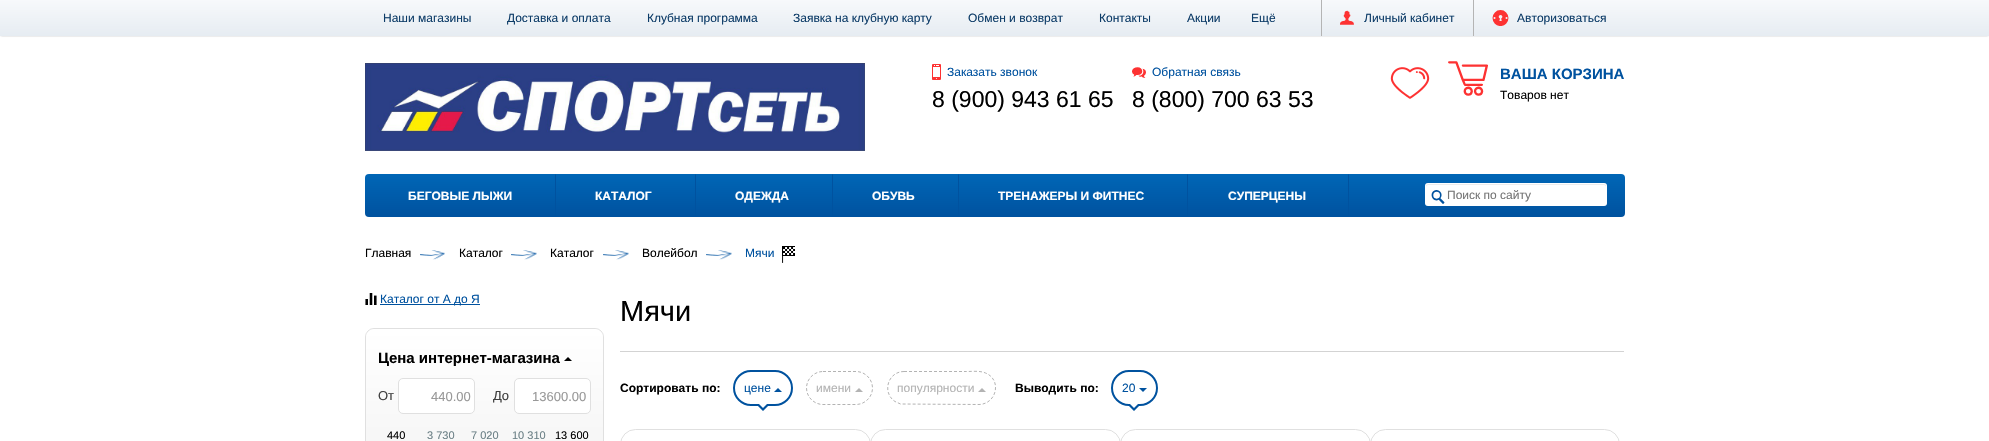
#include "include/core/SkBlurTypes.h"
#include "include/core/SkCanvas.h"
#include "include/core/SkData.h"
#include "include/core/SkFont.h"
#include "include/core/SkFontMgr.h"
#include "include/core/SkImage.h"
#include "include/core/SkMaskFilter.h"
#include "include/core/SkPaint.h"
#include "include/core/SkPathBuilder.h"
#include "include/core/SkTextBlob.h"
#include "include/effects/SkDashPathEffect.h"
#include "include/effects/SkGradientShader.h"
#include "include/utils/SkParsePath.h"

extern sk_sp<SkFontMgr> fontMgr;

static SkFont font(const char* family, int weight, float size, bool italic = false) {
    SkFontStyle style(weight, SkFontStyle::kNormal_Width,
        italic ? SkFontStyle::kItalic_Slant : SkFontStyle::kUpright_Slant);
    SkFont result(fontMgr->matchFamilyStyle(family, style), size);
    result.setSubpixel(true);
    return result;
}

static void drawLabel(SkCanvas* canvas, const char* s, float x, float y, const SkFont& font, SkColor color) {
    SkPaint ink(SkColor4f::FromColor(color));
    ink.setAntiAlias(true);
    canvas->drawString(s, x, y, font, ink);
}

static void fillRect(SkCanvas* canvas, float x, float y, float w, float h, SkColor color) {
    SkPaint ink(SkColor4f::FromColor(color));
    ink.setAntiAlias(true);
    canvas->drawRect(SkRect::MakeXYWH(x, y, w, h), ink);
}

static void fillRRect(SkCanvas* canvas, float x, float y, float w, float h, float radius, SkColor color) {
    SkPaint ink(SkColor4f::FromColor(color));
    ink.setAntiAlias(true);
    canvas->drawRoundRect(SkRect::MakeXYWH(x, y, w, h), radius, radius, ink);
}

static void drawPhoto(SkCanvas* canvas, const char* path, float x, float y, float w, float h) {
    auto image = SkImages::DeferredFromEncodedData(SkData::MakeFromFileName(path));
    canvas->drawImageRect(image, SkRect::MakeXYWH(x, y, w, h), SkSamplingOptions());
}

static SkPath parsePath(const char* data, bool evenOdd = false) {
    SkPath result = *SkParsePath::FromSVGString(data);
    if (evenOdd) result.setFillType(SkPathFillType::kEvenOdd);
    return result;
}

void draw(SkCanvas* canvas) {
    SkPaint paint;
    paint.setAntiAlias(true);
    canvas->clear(0xFFFFFFFF);
    paint.setColor(0xFF000000);
    paint.setMaskFilter(SkMaskFilter::MakeBlur(kNormal_SkBlurStyle, 1));
    canvas->drawRect(SkRect::MakeXYWH(1, 1, 1987, 34), paint);
    paint.setMaskFilter(nullptr);
    {
        const SkColor colors[] = {0xFFF7F9FB, 0xFFE6ECF2};
        const float stops[] = {0, 1};
        const SkPoint ends[] = {{995, 0}, {995, 36}};
        paint.setShader(SkGradientShader::MakeLinear(ends, colors, stops, 2, SkTileMode::kClamp));
        paint.setAlpha(255);
    }
    canvas->drawRect(SkRect::MakeXYWH(0, 0, 1989, 36), paint);
    SkFont font1 = font("Liberation Sans", 400, 12);
    drawLabel(canvas, "Наши магазины", 383, 22, font1, 0xFF0D3C68);
    drawLabel(canvas, "Доставка и оплата", 507, 22, font1, 0xFF0D3C68);
    drawLabel(canvas, "Клубная программа", 647, 22, font1, 0xFF0D3C68);
    drawLabel(canvas, "Заявка на клубную карту", 793, 22, font1, 0xFF0D3C68);
    drawLabel(canvas, "Обмен и возврат", 968, 22, font1, 0xFF0D3C68);
    drawLabel(canvas, "Контакты", 1099, 22, font1, 0xFF0D3C68);
    drawLabel(canvas, "Акции", 1187, 22, font1, 0xFF0D3C68);
    drawLabel(canvas, "Ещё", 1251, 22, font1, 0xFF0D3C68);
    fillRect(canvas, 1321, 0, 1, 36, 0xFFB4B4B4);
    drawPhoto(canvas, "assets/img1.png", 1340, 10, 14, 15);
    drawLabel(canvas, "Личный кабинет", 1364, 22, font1, 0xFF0D3C68);
    fillRect(canvas, 1473, 0, 1, 36, 0xFFB4B4B4);
    drawPhoto(canvas, "assets/img2.png", 1492, 10, 17, 16);
    drawLabel(canvas, "Авторизоваться", 1517, 22, font1, 0xFF0D3C68);
    drawPhoto(canvas, "assets/img3.png", 365, 63, 500, 88);
    drawPhoto(canvas, "assets/img4.png", 932, 64, 9, 16);
    drawLabel(canvas, "Заказать звонок", 947, 76, font1, 0xFF00529F);
    SkFont font2 = font("Liberation Sans", 400, 23);
    drawLabel(canvas, "8 (900) 943 61 65", 932, 107, font2, 0xFF000000);
    drawPhoto(canvas, "assets/img5.png", 1132, 67, 14, 11);
    drawLabel(canvas, "Обратная связь", 1152, 76, font1, 0xFF00529F);
    drawLabel(canvas, "8 (800) 700 63 53", 1132, 107, font2, 0xFF000000);
    drawPhoto(canvas, "assets/img6.png", 1390, 67, 40, 32);
    drawPhoto(canvas, "assets/img7.png", 1448, 61, 40, 35);
    SkFont font3 = font("Liberation Sans", 700, 15);
    drawLabel(canvas, "ВАША КОРЗИНА", 1500, 79, font3, 0xFF00529F);
    drawLabel(canvas, "Товаров нет", 1500, 99, font1, 0xFF000000);
    {
        const SkColor colors[] = {0xFF0066B6, 0xFF00529F};
        const float stops[] = {0, 1};
        const SkPoint ends[] = {{995, 174}, {995, 217}};
        paint.setShader(SkGradientShader::MakeLinear(ends, colors, stops, 2, SkTileMode::kClamp));
        paint.setAlpha(255);
    }
    canvas->drawRoundRect(SkRect::MakeXYWH(365, 174, 1260, 43), 4, 4, paint);
    paint.setShader(nullptr);
    paint.setColor(0xFF00529F);
    canvas->drawPath(parsePath("M556 174V217H555V175Z"), paint);
    SkFont font4 = font("Liberation Sans", 700, 12);
    drawLabel(canvas, "БЕГОВЫЕ ЛЫЖИ", 408, 200, font4, 0xFFFFFFFF);
    canvas->drawPath(parsePath("M696 174V217H695V175Z"), paint);
    drawLabel(canvas, "КАТАЛОГ", 595, 200, font4, 0xFFFFFFFF);
    canvas->drawPath(parsePath("M833 174V217H832V175Z"), paint);
    drawLabel(canvas, "ОДЕЖДА", 735, 200, font4, 0xFFFFFFFF);
    canvas->drawPath(parsePath("M959 174V217H958V175Z"), paint);
    drawLabel(canvas, "ОБУВЬ", 872, 200, font4, 0xFFFFFFFF);
    canvas->drawPath(parsePath("M1188 174V217H1187V175Z"), paint);
    drawLabel(canvas, "ТРЕНАЖЕРЫ И ФИТНЕС", 998, 200, font4, 0xFFFFFFFF);
    canvas->drawPath(parsePath("M1349 174V217H1348V175Z"), paint);
    drawLabel(canvas, "СУПЕРЦЕНЫ", 1228, 200, font4, 0xFFFFFFFF);
    fillRRect(canvas, 1425, 183, 182, 23, 3, 0xFFFFFFFF);
    paint.setColor(0xFFECECEC);
    canvas->drawPath(parsePath("M1428 185H1604C1605 185 1606 186 1606 187V186C1606 185 1605 184 1604 184H1428C1427 184 1426 185 1426 186V187C1426 186 1427 185 1428 185Z"), paint);
    paint.setStroke(true);
    paint.setStrokeWidth(1);
    paint.setColor(0x33FFFFFF);
    canvas->drawRoundRect(SkRect::MakeXYWH(1425.5f, 183.5f, 181, 22), 2.5f, 2.5f, paint);
    drawPhoto(canvas, "assets/img8.png", 1431, 190, 14, 14);
    drawLabel(canvas, "Поиск по сайту", 1447, 199, font1, 0xFF757575);
    drawLabel(canvas, "Главная", 365, 257, font1, 0xFF000000);
    drawPhoto(canvas, "assets/img9.png", 420, 250, 25, 10);
    drawLabel(canvas, "Каталог", 459, 257, font1, 0xFF000000);
    drawPhoto(canvas, "assets/img10.png", 511, 250, 26, 10);
    drawLabel(canvas, "Каталог", 550, 257, font1, 0xFF000000);
    drawPhoto(canvas, "assets/img10.png", 603, 250, 26, 10);
    drawLabel(canvas, "Волейбол", 642, 257, font1, 0xFF000000);
    drawPhoto(canvas, "assets/img10.png", 706, 250, 26, 10);
    drawLabel(canvas, "Мячи", 745, 257, font1, 0xFF00529F);
    drawPhoto(canvas, "assets/img11.png", 782, 246, 13, 17);
    drawPhoto(canvas, "assets/img12.png", 365, 293, 12, 12);
    fillRect(canvas, 380, 304, 100, 1, 0xFF00529F);
    drawLabel(canvas, "Каталог от А до Я", 380, 303, font1, 0xFF00529F);
    paint.setColor(0xFFE0E0E0);
    canvas->drawRoundRect(SkRect::MakeXYWH(365.5f, 328.5f, 238, 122), 8.5f, 8.5f, paint);
    paint.setStroke(false);
    {
        const SkColor colors[] = {0xFFFFFFFF, 0xFFF2F2F2};
        const float stops[] = {0, 1};
        const SkPoint ends[] = {{485, 329}, {485, 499}};
        paint.setShader(SkGradientShader::MakeLinear(ends, colors, stops, 2, SkTileMode::kClamp));
        paint.setAlpha(255);
    }
    canvas->drawPath(parsePath("M375 329H594C599 329 603 333 603 338V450H366V338C366 333 370 329 375 329Z"), paint);
    drawLabel(canvas, "Цена интернет-магазина", 378, 363, font3, 0xFF000000);
    paint.setShader(nullptr);
    paint.setColor(0xFF000000);
    canvas->drawPath(parsePath("M572 361H564L568 357Z"), paint);
    SkFont font5 = font("Liberation Sans", 400, 13);
    drawLabel(canvas, "От", 378, 400, font5, 0xFF3F3F3F);
    paint.setColor(0xFFFFFFFF);
    canvas->drawRoundRect(SkRect::MakeXYWH(398.5f, 378.5f, 76, 35), 4.5f, 4.5f, paint);
    paint.setStroke(true);
    paint.setColor(0xFFE0E0E0);
    canvas->drawRoundRect(SkRect::MakeXYWH(398.5f, 378.5f, 76, 35), 4.5f, 4.5f, paint);
    drawLabel(canvas, "440.00", 431, 401, font5, 0xFF999999);
    drawLabel(canvas, "До", 493, 400, font5, 0xFF3F3F3F);
    paint.setStroke(false);
    paint.setColor(0xFFFFFFFF);
    canvas->drawRoundRect(SkRect::MakeXYWH(514.5f, 378.5f, 76, 35), 4.5f, 4.5f, paint);
    paint.setStroke(true);
    paint.setColor(0xFFE0E0E0);
    canvas->drawRoundRect(SkRect::MakeXYWH(514.5f, 378.5f, 76, 35), 4.5f, 4.5f, paint);
    drawLabel(canvas, "13600.00", 532, 401, font5, 0xFF999999);
    SkFont font6 = font("Liberation Sans", 400, 11);
    drawLabel(canvas, "440", 387, 439, font6, 0xFF000000);
    drawLabel(canvas, "3 730", 427, 439, font6, 0xFF6B8086);
    drawLabel(canvas, "7 020", 471, 439, font6, 0xFF6B8086);
    drawLabel(canvas, "10 310", 512, 439, font6, 0xFF6B8086);
    drawLabel(canvas, "13 600", 555, 439, font6, 0xFF000000);
    fillRect(canvas, 620, 351, 1004, 1, 0xFFD3D3D3);
    SkFont font7 = font("Liberation Sans", 400, 29);
    drawLabel(canvas, "Мячи", 620, 321, font7, 0xFF000000);
    drawLabel(canvas, "Сортировать по:", 620, 392, font4, 0xFF000000);
    paint.setStrokeWidth(2);
    paint.setColor(0xFF00529F);
    canvas->drawRoundRect(SkRect::MakeXYWH(734, 371, 58, 34), 17, 17, paint);
    drawLabel(canvas, "цене", 744, 392, font1, 0xFF00529F);
    paint.setStroke(false);
    canvas->drawPath(parsePath("M782 392H774L778 388ZM756 404H770L763 411Z"), paint);
    paint.setColor(0xFFFFFFFF);
    canvas->drawPath(parsePath("M756 401H770L763 408Z"), paint);
    paint.setStroke(true);
    paint.setStrokeWidth(1);
    paint.setColor(0xFFB3B3B3);
    paint.setPathEffect(SkDashPathEffect::Make({{3, 2}}, 0));
    canvas->drawPath(parsePath("M823 371.5H856C865 371.5 872.5 379 872.5 388C872.5 397 865 404.5 856 404.5H823C814 404.5 806.5 397 806.5 388C806.5 379 814 371.5 823 371.5Z"), paint);
    paint.setPathEffect(nullptr);
    drawLabel(canvas, "имени", 816, 392, font1, 0xFFB3B3B3);
    paint.setStroke(false);
    canvas->drawPath(parsePath("M863 392H855L859 388Z"), paint);
    paint.setStroke(true);
    paint.setPathEffect(SkDashPathEffect::Make({{3, 2}}, 0));
    canvas->drawPath(parsePath("M904 371.5H966.5C972 371.5 980 370.5 985.5 373C1002 379.5 997 404 979 404.5L900.5 404L895 401.5C881.5 392.5 888 371.5 904 371.5Z"), paint);
    paint.setPathEffect(nullptr);
    drawLabel(canvas, "популярности", 897, 392, font1, 0xFFB3B3B3);
    paint.setStroke(false);
    canvas->drawPath(parsePath("M986 392H978L982 388Z"), paint);
    drawLabel(canvas, "Выводить по:", 1015, 392, font4, 0xFF000000);
    paint.setStroke(true);
    paint.setStrokeWidth(2);
    paint.setColor(0xFF00529F);
    canvas->drawRoundRect(SkRect::MakeXYWH(1112, 371, 45, 34), 17, 17, paint);
    drawLabel(canvas, "20", 1122, 392, font1, 0xFF00529F);
    paint.setStroke(false);
    canvas->drawPath(parsePath("M1139 388H1147L1143 392ZM1127 404H1141L1134 411Z"), paint);
    paint.setColor(0xFFFFFFFF);
    canvas->drawPath(parsePath("M1127 401H1141L1134 408Z"), paint);
    paint.setStroke(true);
    paint.setStrokeWidth(1);
    paint.setColor(0xFFE0E0E0);
    canvas->drawRoundRect(SkRect::MakeXYWH(620.5f, 429.5f, 250, 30), 17.5f, 17.5f, paint);
    canvas->drawRoundRect(SkRect::MakeXYWH(870.5f, 429.5f, 250, 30), 17.5f, 17.5f, paint);
    canvas->drawRoundRect(SkRect::MakeXYWH(1120.5f, 429.5f, 250, 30), 17.5f, 17.5f, paint);
    canvas->drawRoundRect(SkRect::MakeXYWH(1370.5f, 429.5f, 249, 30), 17.5f, 17.5f, paint);
}
